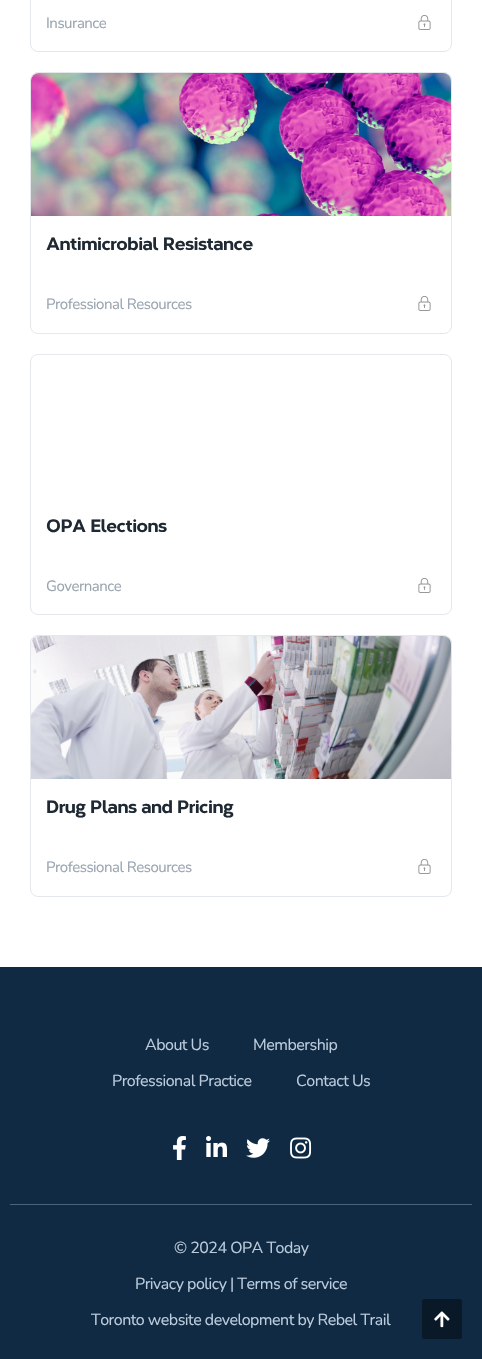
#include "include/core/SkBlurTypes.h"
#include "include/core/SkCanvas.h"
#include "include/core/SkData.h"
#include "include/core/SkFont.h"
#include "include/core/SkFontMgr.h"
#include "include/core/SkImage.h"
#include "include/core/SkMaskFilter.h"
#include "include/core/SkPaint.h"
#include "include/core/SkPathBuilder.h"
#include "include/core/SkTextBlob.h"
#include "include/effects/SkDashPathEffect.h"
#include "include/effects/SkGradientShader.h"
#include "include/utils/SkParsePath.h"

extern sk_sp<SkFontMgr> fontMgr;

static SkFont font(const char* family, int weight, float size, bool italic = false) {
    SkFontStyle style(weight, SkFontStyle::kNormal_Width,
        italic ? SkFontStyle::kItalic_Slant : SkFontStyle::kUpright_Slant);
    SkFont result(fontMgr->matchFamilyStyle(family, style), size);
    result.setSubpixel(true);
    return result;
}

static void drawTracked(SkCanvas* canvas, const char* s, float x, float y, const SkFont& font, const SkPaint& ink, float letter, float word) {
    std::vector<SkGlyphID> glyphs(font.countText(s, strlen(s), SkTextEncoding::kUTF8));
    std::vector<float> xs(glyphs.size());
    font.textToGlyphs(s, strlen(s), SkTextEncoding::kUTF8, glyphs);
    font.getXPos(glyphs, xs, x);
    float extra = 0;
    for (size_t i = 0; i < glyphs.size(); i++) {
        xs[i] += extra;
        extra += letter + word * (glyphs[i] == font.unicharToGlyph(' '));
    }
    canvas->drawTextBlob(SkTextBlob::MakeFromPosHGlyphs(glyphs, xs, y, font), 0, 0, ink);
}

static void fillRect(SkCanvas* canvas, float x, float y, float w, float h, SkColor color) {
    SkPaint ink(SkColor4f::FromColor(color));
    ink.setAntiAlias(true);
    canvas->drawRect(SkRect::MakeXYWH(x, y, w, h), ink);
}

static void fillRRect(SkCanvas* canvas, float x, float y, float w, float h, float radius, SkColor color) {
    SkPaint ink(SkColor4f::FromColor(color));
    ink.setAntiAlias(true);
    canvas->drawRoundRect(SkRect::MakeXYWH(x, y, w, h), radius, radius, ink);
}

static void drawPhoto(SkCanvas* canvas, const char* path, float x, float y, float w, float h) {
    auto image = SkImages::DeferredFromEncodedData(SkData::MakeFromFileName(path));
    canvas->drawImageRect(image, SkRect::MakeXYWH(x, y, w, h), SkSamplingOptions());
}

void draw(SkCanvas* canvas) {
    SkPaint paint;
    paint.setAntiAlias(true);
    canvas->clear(0xFFFFFFFF);
    paint.setStroke(true);
    paint.setStrokeWidth(1);
    paint.setColor(0xFFE4E7EB);
    canvas->drawRoundRect(SkRect::MakeXYWH(30.5f, -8.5f, 421, 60), 7.5f, 7.5f, paint);
    SkFont font1 = font("Nunito", 400, 15);
    paint.setStroke(false);
    paint.setColor(0xFF9AA5B1);
    drawTracked(canvas, "Insurance", 46, 28, font1, paint, -0.5f, 0);
    drawPhoto(canvas, "assets/img1.png", 418, 15, 13, 15);
    paint.setStroke(true);
    paint.setColor(0xFFE4E7EB);
    canvas->drawRoundRect(SkRect::MakeXYWH(30.5f, 72.5f, 421, 261), 7.5f, 7.5f, paint);
    drawPhoto(canvas, "assets/img2.png", 31, 73, 420, 143);
    SkFont font2 = font("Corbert", 800, 18);
    paint.setStroke(false);
    paint.setColor(0xFF1F2933);
    drawTracked(canvas, "Antimicrobial Resistance", 46, 250, font2, paint, -0.5f, 0);
    paint.setColor(0xFF9AA5B1);
    drawTracked(canvas, "Professional Resources", 46, 309, font1, paint, -0.5f, 0);
    drawPhoto(canvas, "assets/img1.png", 418, 296, 13, 15);
    paint.setStroke(true);
    paint.setColor(0xFFE4E7EB);
    canvas->drawRoundRect(SkRect::MakeXYWH(30.5f, 354.5f, 421, 260), 7.5f, 7.5f, paint);
    paint.setStroke(false);
    paint.setColor(0xFF1F2933);
    drawTracked(canvas, "OPA Elections", 46, 532, font2, paint, -0.5f, 0);
    paint.setColor(0xFF9AA5B1);
    drawTracked(canvas, "Governance", 46, 591, font1, paint, -0.5f, 0);
    drawPhoto(canvas, "assets/img1.png", 418, 578, 13, 15);
    paint.setStroke(true);
    paint.setColor(0xFFE4E7EB);
    canvas->drawRoundRect(SkRect::MakeXYWH(30.5f, 635.5f, 421, 261), 7.5f, 7.5f, paint);
    drawPhoto(canvas, "assets/img3.png", 31, 636, 420, 143);
    paint.setStroke(false);
    paint.setColor(0xFF1F2933);
    drawTracked(canvas, "Drug Plans and Pricing", 46, 813, font2, paint, -0.5f, 0);
    paint.setColor(0xFF9AA5B1);
    drawTracked(canvas, "Professional Resources", 46, 872, font1, paint, -0.5f, 0);
    drawPhoto(canvas, "assets/img1.png", 418, 859, 13, 15);
    fillRect(canvas, 0, 967, 482, 392, 0xFF102A43);
    SkFont font3 = font("Nunito", 400, 16);
    paint.setColor(0xFFBCCCDC);
    drawTracked(canvas, "About Us", 145, 1050, font3, paint, -0.5f, 0);
    drawTracked(canvas, "Membership", 253, 1050, font3, paint, -0.5f, 0);
    drawTracked(canvas, "Professional Practice", 112, 1086, font3, paint, -0.5f, 0);
    drawTracked(canvas, "Contact Us", 296, 1086, font3, paint, -0.5f, 0);
    fillRect(canvas, 10, 1204, 462, 1, 0xFF4C6379);
    drawPhoto(canvas, "assets/img4.png", 173, 1136, 13, 24);
    drawPhoto(canvas, "assets/img5.png", 206, 1136, 21, 21);
    drawPhoto(canvas, "assets/img6.png", 246, 1138, 24, 20);
    drawPhoto(canvas, "assets/img7.png", 290, 1137, 22, 22);
    drawTracked(canvas, "© 2024 OPA Today", 174, 1253, font3, paint, -0.5f, 0);
    drawTracked(canvas, "Privacy policy | Terms of service", 135, 1289, font3, paint, -0.5f, 0);
    drawTracked(canvas, "Toronto website development by Rebel Trail", 91, 1325, font3, paint, -0.5f, 0);
    fillRRect(canvas, 422, 1299, 40, 40, 2, 0xFF0A1928);
    drawPhoto(canvas, "assets/img8.png", 434, 1311, 16, 17);
}
